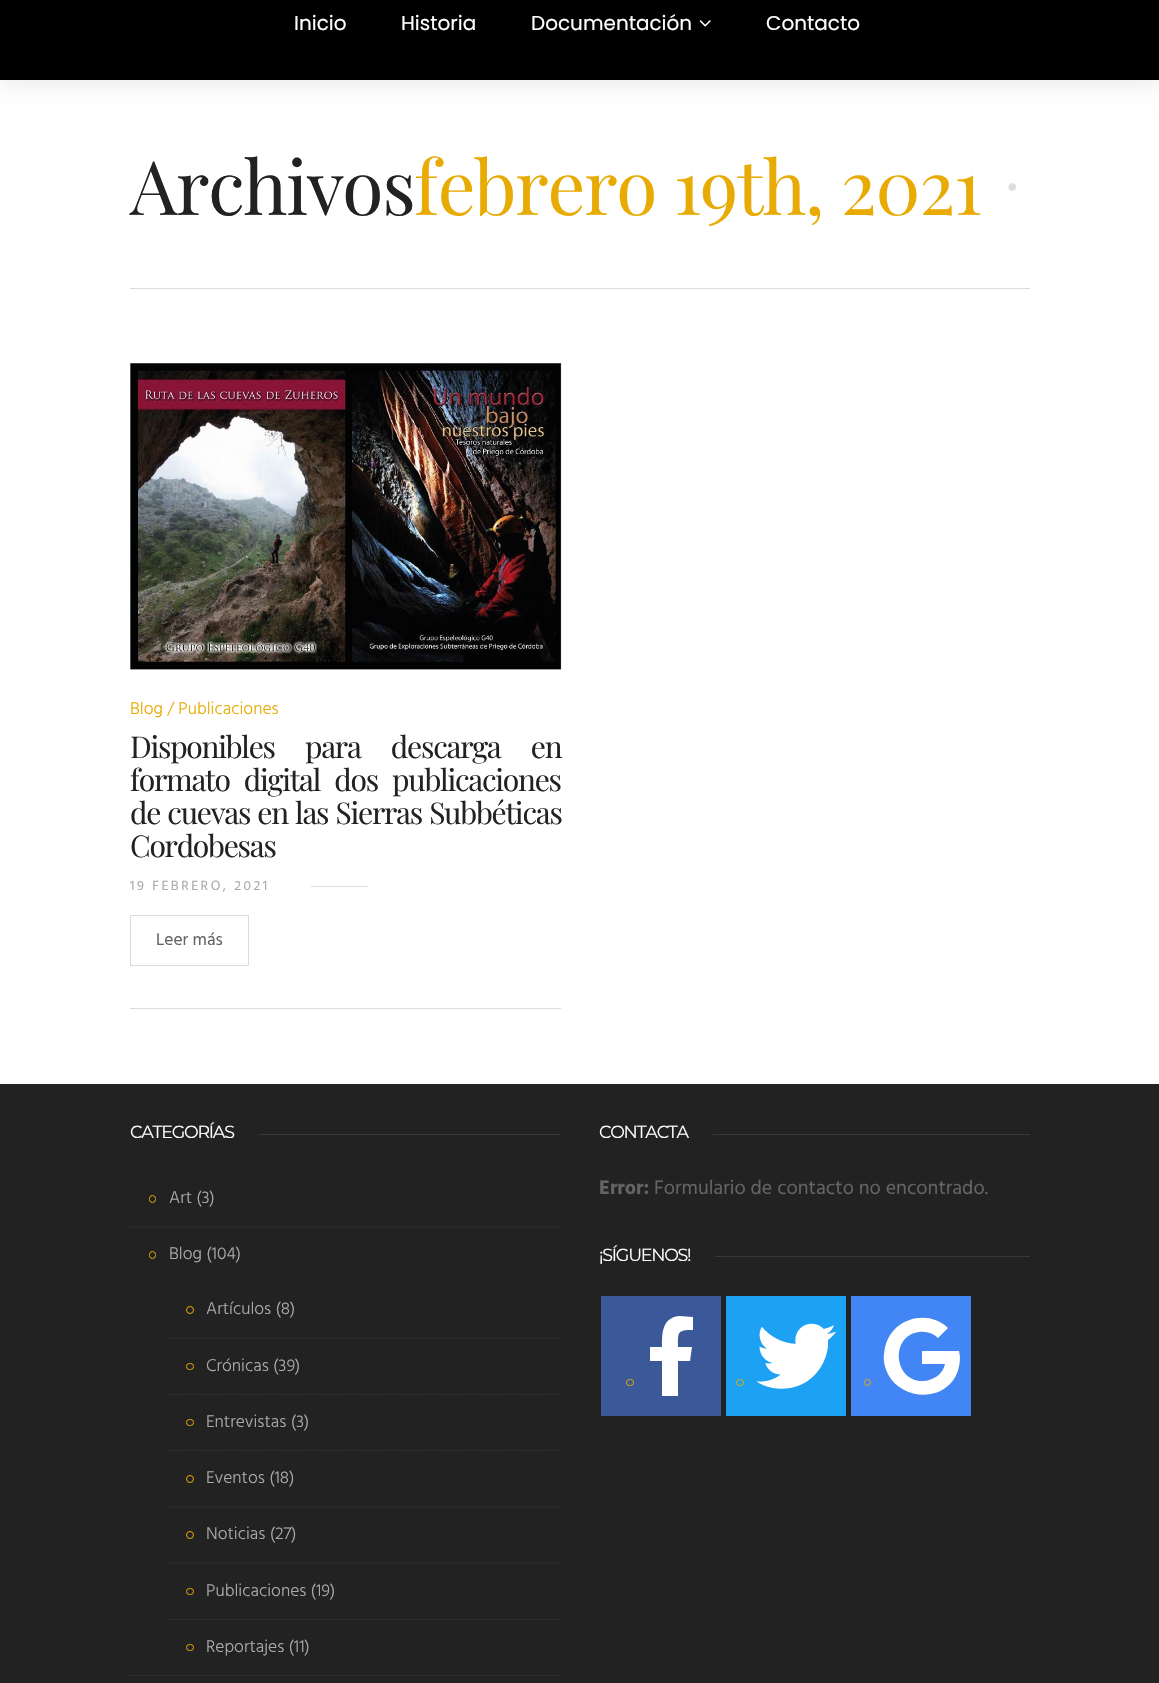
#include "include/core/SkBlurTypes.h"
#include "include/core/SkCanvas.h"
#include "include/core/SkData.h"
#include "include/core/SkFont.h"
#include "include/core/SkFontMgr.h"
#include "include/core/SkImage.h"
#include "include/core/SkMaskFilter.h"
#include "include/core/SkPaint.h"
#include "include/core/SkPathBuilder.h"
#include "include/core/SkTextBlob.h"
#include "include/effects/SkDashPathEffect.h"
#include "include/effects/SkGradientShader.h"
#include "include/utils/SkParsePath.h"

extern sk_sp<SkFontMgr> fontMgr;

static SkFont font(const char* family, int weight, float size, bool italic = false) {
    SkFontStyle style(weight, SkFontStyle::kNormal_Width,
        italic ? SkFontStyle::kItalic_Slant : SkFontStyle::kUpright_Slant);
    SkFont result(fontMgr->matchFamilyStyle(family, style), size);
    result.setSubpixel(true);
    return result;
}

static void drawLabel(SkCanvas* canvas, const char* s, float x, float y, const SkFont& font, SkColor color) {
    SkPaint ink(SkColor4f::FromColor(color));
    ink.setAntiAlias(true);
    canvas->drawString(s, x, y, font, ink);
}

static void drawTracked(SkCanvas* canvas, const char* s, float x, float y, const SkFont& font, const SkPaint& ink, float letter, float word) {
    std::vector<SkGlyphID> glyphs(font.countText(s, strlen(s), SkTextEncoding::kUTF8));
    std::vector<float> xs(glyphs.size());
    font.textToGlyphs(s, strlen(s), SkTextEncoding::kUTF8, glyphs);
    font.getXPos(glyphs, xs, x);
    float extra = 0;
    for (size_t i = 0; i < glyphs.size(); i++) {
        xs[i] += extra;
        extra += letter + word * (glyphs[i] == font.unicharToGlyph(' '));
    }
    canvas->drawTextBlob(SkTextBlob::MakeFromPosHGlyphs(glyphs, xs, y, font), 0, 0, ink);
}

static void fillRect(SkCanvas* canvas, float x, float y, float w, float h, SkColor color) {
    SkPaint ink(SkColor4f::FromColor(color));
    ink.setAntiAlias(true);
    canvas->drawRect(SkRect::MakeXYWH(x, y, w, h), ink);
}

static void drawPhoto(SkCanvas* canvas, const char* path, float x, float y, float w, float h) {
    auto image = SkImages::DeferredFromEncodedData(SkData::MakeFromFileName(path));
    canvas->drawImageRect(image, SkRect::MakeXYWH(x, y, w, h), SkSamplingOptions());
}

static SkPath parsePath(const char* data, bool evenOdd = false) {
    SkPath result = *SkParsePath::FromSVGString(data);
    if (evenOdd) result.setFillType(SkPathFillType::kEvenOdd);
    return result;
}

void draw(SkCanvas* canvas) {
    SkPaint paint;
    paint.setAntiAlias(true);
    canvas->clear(0xFFFFFFFF);
    paint.setColor(0x1A000000);
    paint.setMaskFilter(SkMaskFilter::MakeBlur(kNormal_SkBlurStyle, 12.5f));
    canvas->drawRect(SkRect::MakeXYWH(0, -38, 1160, 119), paint);
    paint.setMaskFilter(nullptr);
    fillRect(canvas, 0, 0, 1159, 80, 0xFF000000);
    SkFont font1 = font("Poppins", 400, 20);
    drawLabel(canvas, "Inicio", 294, 30, font1, 0xFFFFFFFF);
    drawLabel(canvas, "Historia", 401, 30, font1, 0xFFFFFFFF);
    drawLabel(canvas, "Documentación", 531, 30, font1, 0xFFFFFFFF);
    drawPhoto(canvas, "assets/img1.png", 699, 20, 12, 7);
    drawLabel(canvas, "Contacto", 766, 30, font1, 0xFFFFFFFF);
    fillRect(canvas, 130, 288, 900, 1, 0xFFDDDDDD);
    SkFont font2 = font("Playfair Display", 400, 75);
    paint.setColor(0xFF222222);
    drawTracked(canvas, "Archivos", 130, 215, font2, paint, -1.25f, 0);
    paint.setColor(0xFFE8AB04);
    drawTracked(canvas, "febrero 19th, 2021", 414, 215, font2, paint, -1.25f, 0);
    SkFont font3 = font("Liberation Serif", 400, 17.5f);
    paint.setColor(0xFFDDDDDD);
    drawTracked(canvas, "●", 1007, 192, font3, paint, -1.25f, 0);
    fillRect(canvas, 130, 1008, 431, 1, 0xFFDDDDDD);
    drawPhoto(canvas, "assets/img2.png", 130, 363, 432, 307);
    SkFont font4 = font("Hind", 300, 17.5f);
    drawLabel(canvas, "Blog / Publicaciones", 130, 714, font4, 0xFFE8AB04);
    SkFont font5 = font("Playfair Display", 400, 30);
    paint.setColor(0xFF222222);
    drawTracked(canvas, "Disponibles para descarga en", 130, 758, font5, paint, -1.25f, 24);
    drawTracked(canvas, "formato digital dos publicaciones", 130, 791, font5, paint, -1.25f, 8);
    drawTracked(canvas, "de cuevas en las Sierras Subbéticas", 130, 824, font5, paint, -1.25f, 1);
    drawTracked(canvas, "Cordobesas", 130, 857, font5, paint, -1.25f, 0);
    SkFont font6 = font("Hind", 400, 13.75f);
    paint.setColor(0xFFAAAAAA);
    drawTracked(canvas, "19 FEBRERO, 2021", 130, 890, font6, paint, 2.5f, 0);
    fillRect(canvas, 311, 886, 57, 1, 0xFFDDDDDD);
    paint.setStroke(true);
    paint.setStrokeWidth(1);
    paint.setColor(0xFFDCDCDC);
    canvas->drawRect(SkRect::MakeXYWH(130.5f, 915.5f, 118, 50), paint);
    SkFont font7 = font("Hind", 400, 17.5f);
    drawLabel(canvas, "Leer más", 156, 945, font7, 0xFF646464);
    fillRect(canvas, 0, 1084, 1159, 599, 0xFF222222);
    SkFont font8 = font("Montserrat", 400, 17.5f);
    paint.setStroke(false);
    paint.setColor(0xFFFFFFFF);
    drawTracked(canvas, "CATEGORÍAS", 130, 1138, font8, paint, -1.25f, 0);
    fillRect(canvas, 259, 1134, 302, 1, 0xFF383838);
    paint.setStroke(true);
    paint.setStrokeWidth(1.2f);
    paint.setColor(0xFF383838);
    paint.setPathEffect(SkDashPathEffect::Make({{1.25f, 1.25f}}, 0));
    canvas->drawPath(parsePath("M130 1227H561"), paint);
    paint.setPathEffect(nullptr);
    paint.setStrokeWidth(1);
    paint.setColor(0xFFE8AB04);
    canvas->drawRoundRect(SkRect::MakeXYWH(149.5f, 1195.5f, 6, 7), 3, 3, paint);
    drawLabel(canvas, "Art (3)", 169, 1203, font4, 0xFFAAAAAA);
    canvas->drawRoundRect(SkRect::MakeXYWH(149.5f, 1251.5f, 6, 7), 3, 3, paint);
    drawLabel(canvas, "Blog (104)", 169, 1259, font4, 0xFFAAAAAA);
    paint.setStrokeWidth(1.2f);
    paint.setColor(0xFF383838);
    paint.setPathEffect(SkDashPathEffect::Make({{1.25f, 1.25f}}, 0));
    canvas->drawPath(parsePath("M130 1675.5H561"), paint);
    paint.setPathEffect(nullptr);
    paint.setPathEffect(SkDashPathEffect::Make({{1.25f, 1.25f}}, 0));
    canvas->drawPath(parsePath("M167.5 1338H561"), paint);
    paint.setPathEffect(nullptr);
    paint.setStrokeWidth(1);
    paint.setColor(0xFFE8AB04);
    canvas->drawCircle(190, 1310, 3.5f, paint);
    drawLabel(canvas, "Artículos (8)", 206, 1314, font4, 0xFFAAAAAA);
    paint.setStrokeWidth(1.2f);
    paint.setColor(0xFF383838);
    paint.setPathEffect(SkDashPathEffect::Make({{1.25f, 1.25f}}, 0));
    canvas->drawPath(parsePath("M167.5 1394.5H561"), paint);
    paint.setPathEffect(nullptr);
    paint.setStrokeWidth(1);
    paint.setColor(0xFFE8AB04);
    canvas->drawRoundRect(SkRect::MakeXYWH(186.5f, 1363.5f, 7, 6), 3, 3, paint);
    drawLabel(canvas, "Crónicas (39)", 206, 1371, font4, 0xFFAAAAAA);
    paint.setStrokeWidth(1.2f);
    paint.setColor(0xFF383838);
    paint.setPathEffect(SkDashPathEffect::Make({{1.25f, 1.25f}}, 0));
    canvas->drawPath(parsePath("M167.5 1450.5H561"), paint);
    paint.setPathEffect(nullptr);
    paint.setStrokeWidth(1);
    paint.setColor(0xFFE8AB04);
    canvas->drawRoundRect(SkRect::MakeXYWH(186.5f, 1419.5f, 7, 6), 3, 3, paint);
    drawLabel(canvas, "Entrevistas (3)", 206, 1427, font4, 0xFFAAAAAA);
    paint.setStrokeWidth(1.2f);
    paint.setColor(0xFF383838);
    paint.setPathEffect(SkDashPathEffect::Make({{1.25f, 1.25f}}, 0));
    canvas->drawPath(parsePath("M167.5 1507H561"), paint);
    paint.setPathEffect(nullptr);
    paint.setStrokeWidth(1);
    paint.setColor(0xFFE8AB04);
    canvas->drawCircle(190, 1479, 3.5f, paint);
    drawLabel(canvas, "Eventos (18)", 206, 1483, font4, 0xFFAAAAAA);
    paint.setStrokeWidth(1.2f);
    paint.setColor(0xFF383838);
    paint.setPathEffect(SkDashPathEffect::Make({{1.25f, 1.25f}}, 0));
    canvas->drawPath(parsePath("M167.5 1563H561"), paint);
    paint.setPathEffect(nullptr);
    paint.setStrokeWidth(1);
    paint.setColor(0xFFE8AB04);
    canvas->drawCircle(190, 1535, 3.5f, paint);
    drawLabel(canvas, "Noticias (27)", 206, 1539, font4, 0xFFAAAAAA);
    paint.setStrokeWidth(1.2f);
    paint.setColor(0xFF383838);
    paint.setPathEffect(SkDashPathEffect::Make({{1.25f, 1.25f}}, 0));
    canvas->drawPath(parsePath("M167.5 1619.5H561"), paint);
    paint.setPathEffect(nullptr);
    paint.setStrokeWidth(1);
    paint.setColor(0xFFE8AB04);
    canvas->drawRoundRect(SkRect::MakeXYWH(186.5f, 1588.5f, 7, 6), 3, 3, paint);
    drawLabel(canvas, "Publicaciones (19)", 206, 1596, font4, 0xFFAAAAAA);
    canvas->drawRoundRect(SkRect::MakeXYWH(186.5f, 1644.5f, 7, 6), 3, 3, paint);
    drawLabel(canvas, "Reportajes (11)", 206, 1652, font4, 0xFFAAAAAA);
    paint.setStroke(false);
    paint.setColor(0xFFFFFFFF);
    drawTracked(canvas, "CONTACTA", 599, 1138, font8, paint, -1.25f, 0);
    fillRect(canvas, 713, 1134, 317, 1, 0xFF383838);
    SkFont font9 = font("Hind", 700, 20);
    drawLabel(canvas, "Error:", 599, 1194, font9, 0xFF646464);
    SkFont font10 = font("Hind", 400, 20);
    drawLabel(canvas, "Formulario de contacto no encontrado.", 654, 1194, font10, 0xFF646464);
    drawTracked(canvas, "¡SÍGUENOS!", 599, 1261, font8, paint, -1.25f, 0);
    fillRect(canvas, 715, 1256, 315, 1, 0xFF383838);
    fillRect(canvas, 601, 1296, 120, 120, 0xFF3B5998);
    paint.setStroke(true);
    paint.setColor(0xFFE8AB04);
    canvas->drawRoundRect(SkRect::MakeXYWH(626.5f, 1379.5f, 7, 6), 3, 3, paint);
    paint.setStroke(false);
    paint.setColor(0xFFFFFFFF);
    canvas->drawPath(parsePath("M690 1361L692 1347H678C678 1332 677 1330 693 1330V1317C688 1317 684 1316 679 1316C662 1318 662 1333 662 1347H650V1361H662V1396H678V1361Z"), paint);
    fillRect(canvas, 726, 1296, 120, 120, 0xFF1DA1F2);
    paint.setStroke(true);
    paint.setColor(0xFFE8AB04);
    canvas->drawRoundRect(SkRect::MakeXYWH(736.5f, 1379.5f, 7, 6), 3, 3, paint);
    drawPhoto(canvas, "assets/img3.png", 756, 1323, 81, 66);
    fillRect(canvas, 851, 1296, 120, 120, 0xFF4285F4);
    canvas->drawCircle(867.5f, 1382.5f, 3, paint);
    paint.setStroke(false);
    paint.setColor(0xFFFFFFFF);
    canvas->drawPath(parsePath("M960 1357C960 1367 957 1377 950 1384C932 1402 901 1396 889 1376C885 1369 883 1361 884 1354C885 1343 889 1334 897 1327C911 1315 934 1314 948 1328L938 1338C933 1333 926 1331 919 1332C889 1336 894 1383 924 1381C934 1380 943 1374 945 1364H922V1351H959Z"), paint);
}
